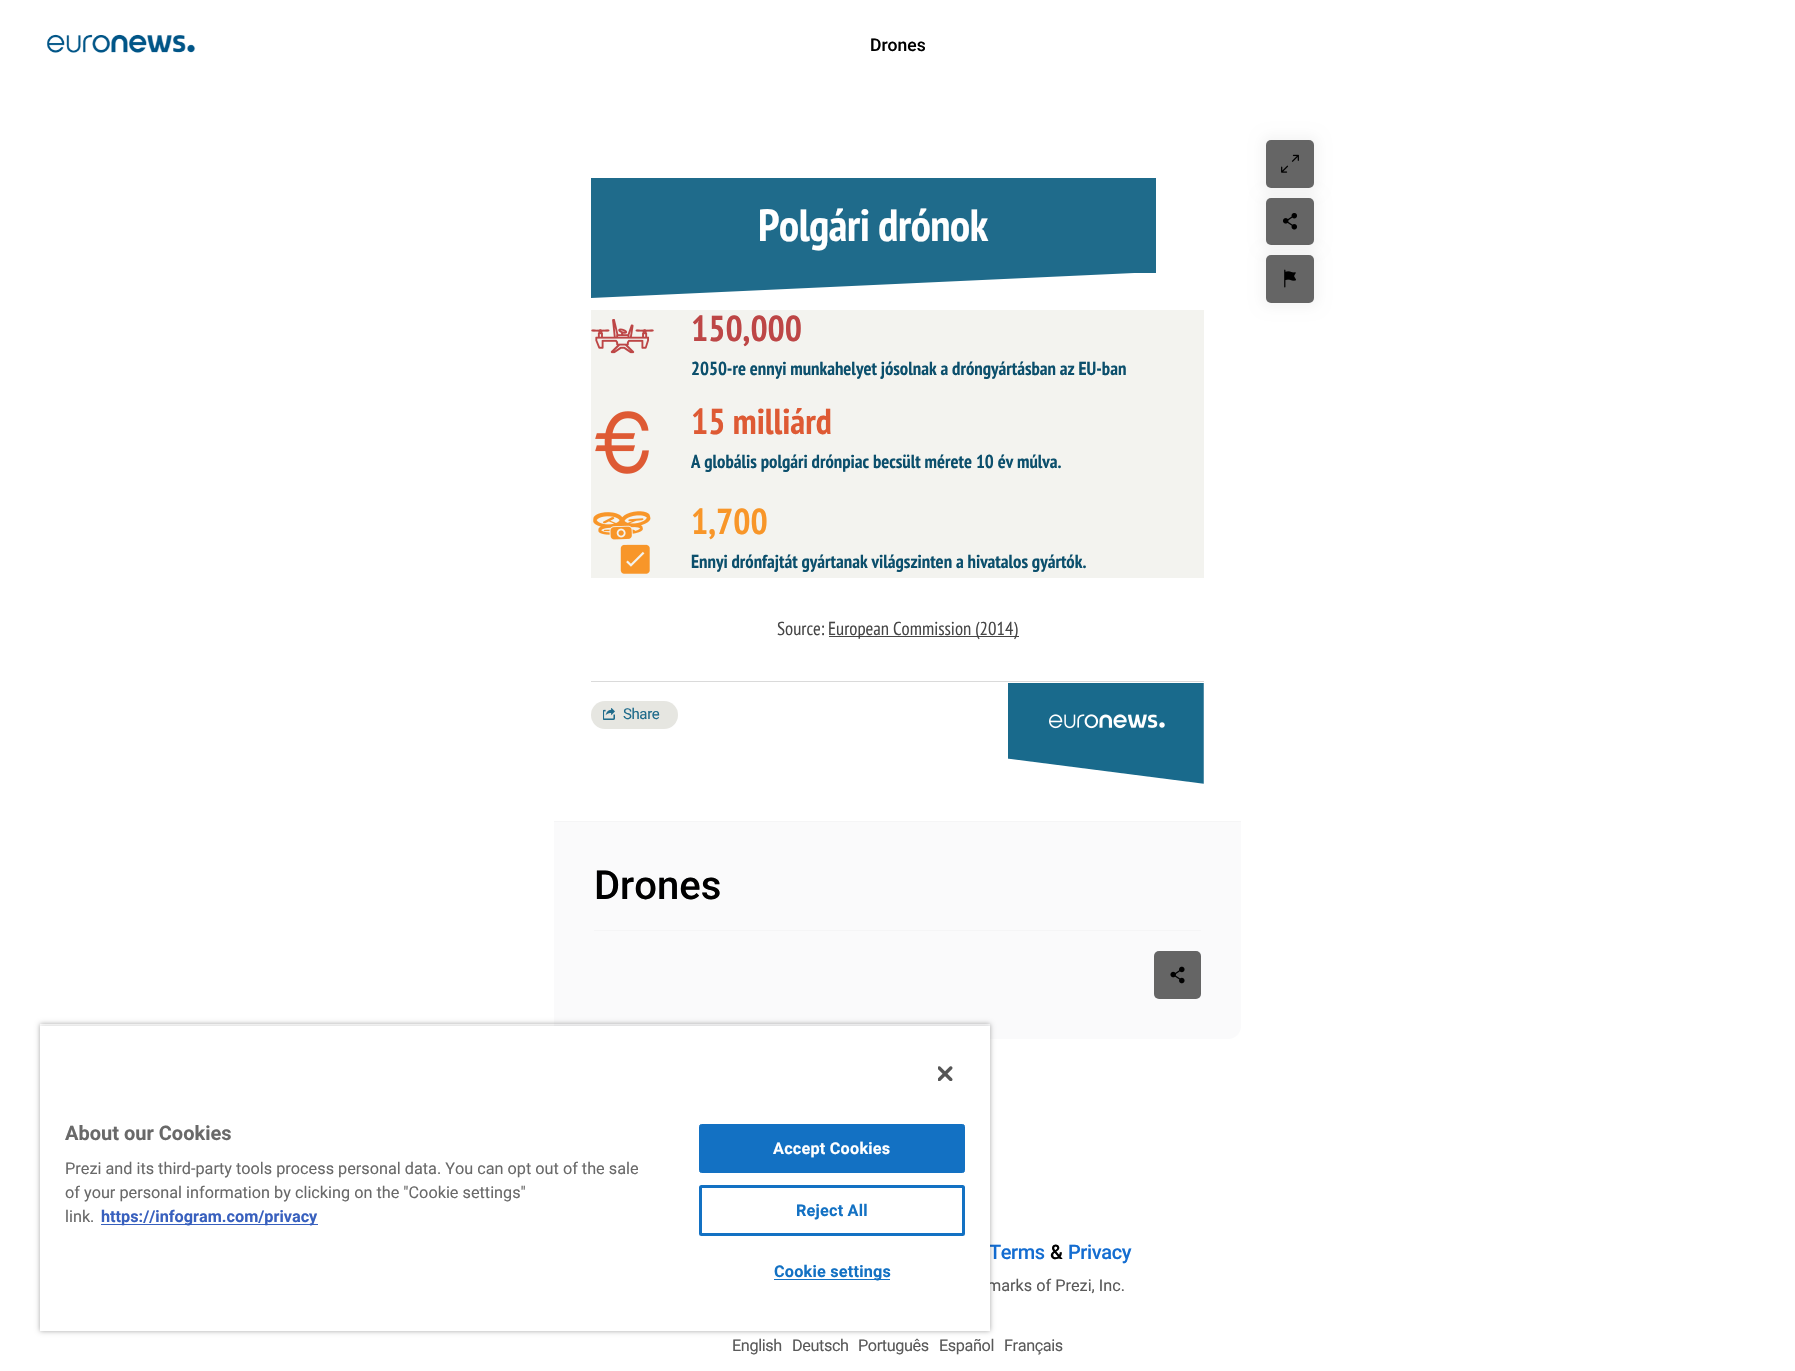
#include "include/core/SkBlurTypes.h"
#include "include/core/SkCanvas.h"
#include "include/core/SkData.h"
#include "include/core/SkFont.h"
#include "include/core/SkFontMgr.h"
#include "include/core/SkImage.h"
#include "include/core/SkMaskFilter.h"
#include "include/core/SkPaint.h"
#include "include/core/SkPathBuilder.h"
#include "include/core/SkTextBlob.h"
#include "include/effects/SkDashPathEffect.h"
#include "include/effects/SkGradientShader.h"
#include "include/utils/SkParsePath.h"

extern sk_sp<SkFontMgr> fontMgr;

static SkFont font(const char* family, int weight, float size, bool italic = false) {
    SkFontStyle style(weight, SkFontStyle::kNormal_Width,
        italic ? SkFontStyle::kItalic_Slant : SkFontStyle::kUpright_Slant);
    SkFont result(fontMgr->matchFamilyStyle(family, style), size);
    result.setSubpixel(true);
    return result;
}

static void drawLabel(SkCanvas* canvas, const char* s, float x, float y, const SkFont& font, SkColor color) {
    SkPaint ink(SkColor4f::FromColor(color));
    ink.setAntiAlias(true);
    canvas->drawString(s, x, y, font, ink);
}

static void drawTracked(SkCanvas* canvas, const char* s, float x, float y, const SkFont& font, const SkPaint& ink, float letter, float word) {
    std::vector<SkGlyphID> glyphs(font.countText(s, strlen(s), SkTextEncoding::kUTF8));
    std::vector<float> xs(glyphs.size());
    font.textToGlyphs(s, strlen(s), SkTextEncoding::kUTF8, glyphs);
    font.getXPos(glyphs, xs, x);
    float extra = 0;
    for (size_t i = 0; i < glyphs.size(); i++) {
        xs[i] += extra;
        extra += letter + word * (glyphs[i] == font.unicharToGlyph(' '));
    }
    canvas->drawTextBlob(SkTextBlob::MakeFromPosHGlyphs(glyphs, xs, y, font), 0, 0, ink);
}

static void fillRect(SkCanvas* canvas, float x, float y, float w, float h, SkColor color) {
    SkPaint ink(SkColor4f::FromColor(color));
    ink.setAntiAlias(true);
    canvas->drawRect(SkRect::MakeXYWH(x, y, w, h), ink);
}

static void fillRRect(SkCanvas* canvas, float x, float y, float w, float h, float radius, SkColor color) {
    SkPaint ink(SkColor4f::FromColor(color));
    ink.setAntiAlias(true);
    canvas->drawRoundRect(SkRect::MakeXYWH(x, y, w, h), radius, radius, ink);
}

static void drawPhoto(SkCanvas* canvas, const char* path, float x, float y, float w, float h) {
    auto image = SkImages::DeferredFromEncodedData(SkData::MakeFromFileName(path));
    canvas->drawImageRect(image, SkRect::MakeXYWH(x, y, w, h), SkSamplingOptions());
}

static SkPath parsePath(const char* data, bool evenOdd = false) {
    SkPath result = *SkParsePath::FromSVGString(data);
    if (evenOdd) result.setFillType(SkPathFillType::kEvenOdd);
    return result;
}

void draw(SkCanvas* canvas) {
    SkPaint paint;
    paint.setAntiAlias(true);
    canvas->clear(0xFFFFFFFF);
    drawPhoto(canvas, "assets/img1.png", 47, 34, 149, 19);
    SkFont font1 = font("Roboto", 500, 17.5f);
    drawLabel(canvas, "Drones", 870, 51, font1, 0xFF000000);
    fillRect(canvas, 591, 178, 565, 95, 0xFF1F6B8B);
    SkFont font2 = font("PT Sans Narrow", 700, 45);
    paint.setColor(0xFFFFFFFF);
    drawTracked(canvas, "Polgári drónok", 758, 241, font2, paint, -0.4f, 0);
    canvas->save();
    canvas->clipRect(SkRect::MakeXYWH(591, 273, 565, 25));
    paint.setColor(0xFF1F6B8B);
    canvas->drawPath(parsePath("M591 272V298L1156 272Z"), paint);
    canvas->restore();
    fillRect(canvas, 591, 310, 613, 268, 0xFFF3F3EF);
    drawPhoto(canvas, "assets/img2.png", 591, 319, 63, 35);
    SkFont font3 = font("PT Sans Narrow", 700, 36);
    drawLabel(canvas, "150,000", 691, 341, font3, 0xFFBD4646);
    SkFont font4 = font("PT Sans Narrow", 700, 18.75f);
    drawLabel(canvas, "2050-re ennyi munkahelyet jósolnak a dróngyártásban az EU-ban", 691, 375, font4, 0xFF0B4F6C);
    drawPhoto(canvas, "assets/img3.png", 595, 411, 54, 63);
    drawLabel(canvas, "15 milliárd", 691, 434, font3, 0xFFDE5A34);
    drawLabel(canvas, "A globális polgári drónpiac becsült mérete 10 év múlva.", 691, 468, font4, 0xFF0B4F6C);
    drawPhoto(canvas, "assets/img4.png", 593, 511, 58, 63);
    drawLabel(canvas, "1,700", 691, 534, font3, 0xFFF89629);
    drawLabel(canvas, "Ennyi drónfajtát gyártanak világszinten a hivatalos gyártók.", 691, 568, font4, 0xFF0B4F6C);
    SkFont font5 = font("PT Sans Narrow", 400, 18.75f);
    drawLabel(canvas, "Source:", 777, 635, font5, 0xFF464646);
    fillRect(canvas, 829, 636, 190, 1, 0xFF464646);
    drawLabel(canvas, "European Commission (2014)", 828, 635, font5, 0xFF464646);
    fillRect(canvas, 591, 681, 613, 1, 0xFFDADADA);
    fillRRect(canvas, 591, 701, 87, 28, 14, 0xFFE6E6E1);
    drawPhoto(canvas, "assets/img5.png", 603, 708, 12, 12);
    SkFont font6 = font("Roboto", 400, 15);
    drawTracked(canvas, "Share", 623, 719, font6, paint, -0.4f, 0);
    drawPhoto(canvas, "assets/img6.png", 1008, 683, 196, 101);
    paint.setColor(0x0A000000);
    paint.setMaskFilter(SkMaskFilter::MakeBlur(kNormal_SkBlurStyle, 6));
    canvas->drawRoundRect(SkRect::MakeXYWH(1261, 135, 58, 58), 10, 10, paint);
    paint.setMaskFilter(nullptr);
    fillRRect(canvas, 1266, 140, 48, 48, 5, 0xFF656565);
    drawPhoto(canvas, "assets/img7.png", 1281, 154, 18, 19);
    paint.setMaskFilter(SkMaskFilter::MakeBlur(kNormal_SkBlurStyle, 6));
    canvas->drawRoundRect(SkRect::MakeXYWH(1261, 193, 58, 57), 10, 10, paint);
    paint.setMaskFilter(nullptr);
    fillRRect(canvas, 1266, 198, 48, 47, 5, 0xFF656565);
    drawPhoto(canvas, "assets/img8.png", 1283, 213, 14, 17);
    paint.setMaskFilter(SkMaskFilter::MakeBlur(kNormal_SkBlurStyle, 6));
    canvas->drawRoundRect(SkRect::MakeXYWH(1261, 250, 58, 58), 10, 10, paint);
    paint.setMaskFilter(nullptr);
    fillRRect(canvas, 1266, 255, 48, 48, 5, 0xFF656565);
    drawPhoto(canvas, "assets/img9.png", 1284, 269, 12, 19);
    paint.setColor(0xFFFAFAFB);
    canvas->drawPath(parsePath("M554 821H1241V1026C1241 1033 1235 1039 1228 1039H567C560 1039 554 1033 554 1026Z"), paint);
    fillRect(canvas, 554, 821, 687, 1, 0xFFF5F5F6);
    SkFont font7 = font("Roboto", 500, 40);
    drawLabel(canvas, "Drones", 594, 899, font7, 0xFF000000);
    fillRect(canvas, 594, 930, 607, 1, 0xFFF5F5F6);
    fillRRect(canvas, 1154, 951, 47, 48, 5, 0xFF656565);
    drawPhoto(canvas, "assets/img10.png", 1170, 966, 15, 18);
    SkFont font8 = font("Roboto", 500, 20);
    paint.setColor(0xFF146DD1);
    drawTracked(canvas, "Terms", 989, 1259, font8, paint, -0.4f, 0);
    drawLabel(canvas, "&", 1050, 1259, font8, 0xFF000000);
    drawTracked(canvas, "Privacy", 1068, 1259, font8, paint, -0.4f, 0);
    SkFont font9 = font("Roboto", 400, 16.25f);
    drawLabel(canvas, "marks of Prezi, Inc.", 987, 1291, font9, 0xFF5A5A5A);
    paint.setColor(0xFF5A5A5A);
    drawTracked(canvas, "English", 732, 1351, font9, paint, -0.4f, 0);
    drawTracked(canvas, "Deutsch", 792, 1351, font9, paint, -0.4f, 0);
    drawTracked(canvas, "Português", 858, 1351, font9, paint, -0.4f, 0);
    drawTracked(canvas, "Español", 939, 1351, font9, paint, -0.4f, 0);
    drawTracked(canvas, "Français", 1004, 1351, font9, paint, -0.4f, 0);
    canvas->save();
    canvas->clipPath(parsePath("M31 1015H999V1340H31ZM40 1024H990V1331H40Z", true), true);
    paint.setColor(0x59000000);
    paint.setMaskFilter(SkMaskFilter::MakeBlur(kNormal_SkBlurStyle, 2.5f));
    canvas->drawRect(SkRect::MakeXYWH(40, 1024, 950, 307), paint);
    paint.setMaskFilter(nullptr);
    canvas->restore();
    canvas->save();
    canvas->clipRect(SkRect::MakeXYWH(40, 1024, 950, 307));
    paint.setColor(0x33000000);
    paint.setMaskFilter(SkMaskFilter::MakeBlur(kNormal_SkBlurStyle, 2.5f));
    canvas->drawRect(SkRect::MakeXYWH(40, 1026, 950, 305), paint);
    paint.setMaskFilter(nullptr);
    canvas->restore();
    fillRect(canvas, 40, 1026, 950, 305, 0xFFFFFFFF);
    drawPhoto(canvas, "assets/img11.png", 938, 1066, 15, 15);
    SkFont font10 = font("Roboto", 700, 20);
    drawLabel(canvas, "About our Cookies", 65, 1140, font10, 0xFF696969);
    drawLabel(canvas, "Prezi and its third-party tools process personal data. You can opt out of the sale", 65, 1174, font9, 0xFF696969);
    drawLabel(canvas, "of your personal information by clicking on the \"Cookie settings\"", 65, 1198, font9, 0xFF696969);
    drawLabel(canvas, "link.", 65, 1222, font9, 0xFF696969);
    fillRect(canvas, 101, 1224, 217, 1, 0xFF3860BE);
    SkFont font11 = font("Roboto", 700, 16.25f);
    drawLabel(canvas, "https://infogram.com/privacy", 101, 1222, font11, 0xFF3860BE);
    paint.setColor(0xFF1371C3);
    canvas->drawRoundRect(SkRect::MakeXYWH(699.5f, 1124.5f, 265, 48), 2, 2, paint);
    paint.setStroke(true);
    paint.setStrokeWidth(1);
    canvas->drawRoundRect(SkRect::MakeXYWH(699.5f, 1124.5f, 265, 48), 2, 2, paint);
    paint.setStroke(false);
    paint.setColor(0xFFFFFFFF);
    drawTracked(canvas, "Accept Cookies", 773, 1154, font11, paint, 0.2f, 0);
    paint.setStroke(true);
    paint.setStrokeWidth(3);
    paint.setColor(0xFF1371C3);
    canvas->drawRoundRect(SkRect::MakeXYWH(700.5f, 1186.5f, 263, 48), 1, 1, paint);
    paint.setStroke(false);
    drawTracked(canvas, "Reject All", 796, 1216, font11, paint, 0.2f, 0);
    fillRect(canvas, 774, 1279, 116, 1, 0xFF1371C3);
    drawTracked(canvas, "Cookie settings", 774, 1277, font11, paint, 0.2f, 0);
}
